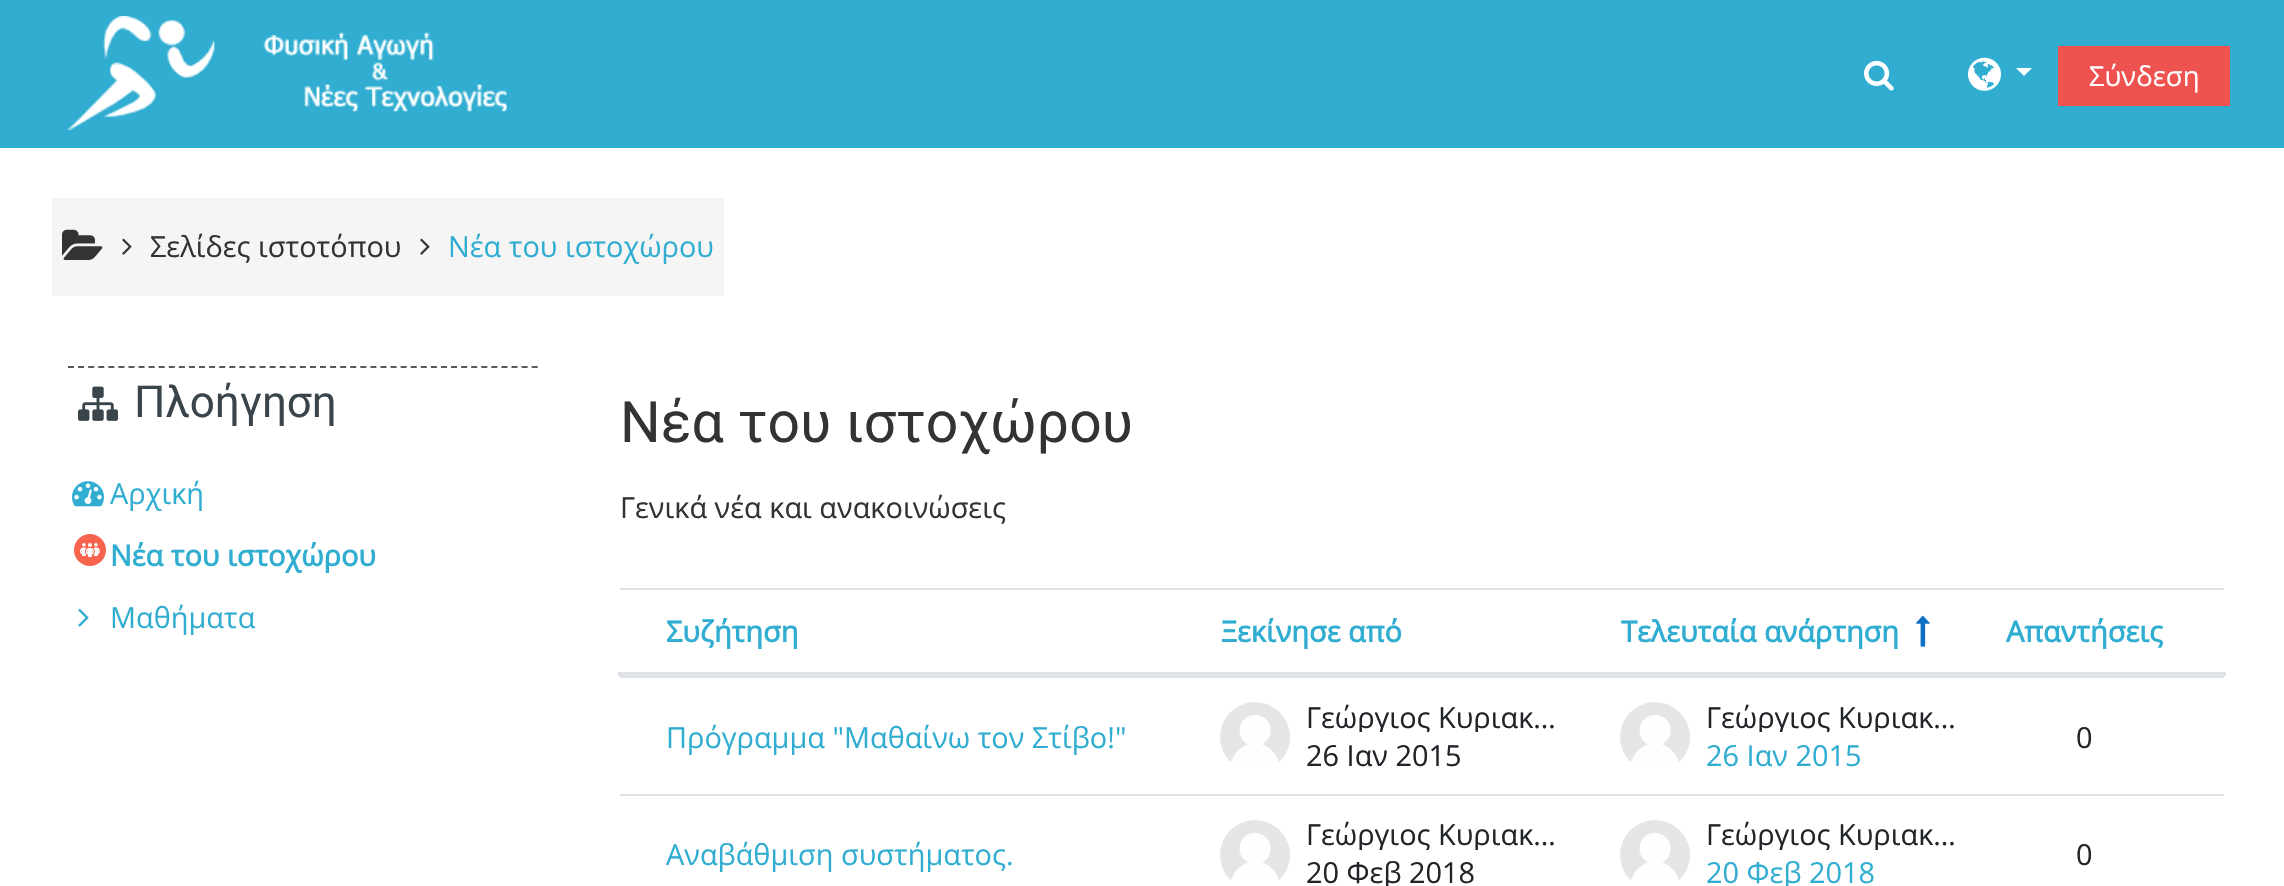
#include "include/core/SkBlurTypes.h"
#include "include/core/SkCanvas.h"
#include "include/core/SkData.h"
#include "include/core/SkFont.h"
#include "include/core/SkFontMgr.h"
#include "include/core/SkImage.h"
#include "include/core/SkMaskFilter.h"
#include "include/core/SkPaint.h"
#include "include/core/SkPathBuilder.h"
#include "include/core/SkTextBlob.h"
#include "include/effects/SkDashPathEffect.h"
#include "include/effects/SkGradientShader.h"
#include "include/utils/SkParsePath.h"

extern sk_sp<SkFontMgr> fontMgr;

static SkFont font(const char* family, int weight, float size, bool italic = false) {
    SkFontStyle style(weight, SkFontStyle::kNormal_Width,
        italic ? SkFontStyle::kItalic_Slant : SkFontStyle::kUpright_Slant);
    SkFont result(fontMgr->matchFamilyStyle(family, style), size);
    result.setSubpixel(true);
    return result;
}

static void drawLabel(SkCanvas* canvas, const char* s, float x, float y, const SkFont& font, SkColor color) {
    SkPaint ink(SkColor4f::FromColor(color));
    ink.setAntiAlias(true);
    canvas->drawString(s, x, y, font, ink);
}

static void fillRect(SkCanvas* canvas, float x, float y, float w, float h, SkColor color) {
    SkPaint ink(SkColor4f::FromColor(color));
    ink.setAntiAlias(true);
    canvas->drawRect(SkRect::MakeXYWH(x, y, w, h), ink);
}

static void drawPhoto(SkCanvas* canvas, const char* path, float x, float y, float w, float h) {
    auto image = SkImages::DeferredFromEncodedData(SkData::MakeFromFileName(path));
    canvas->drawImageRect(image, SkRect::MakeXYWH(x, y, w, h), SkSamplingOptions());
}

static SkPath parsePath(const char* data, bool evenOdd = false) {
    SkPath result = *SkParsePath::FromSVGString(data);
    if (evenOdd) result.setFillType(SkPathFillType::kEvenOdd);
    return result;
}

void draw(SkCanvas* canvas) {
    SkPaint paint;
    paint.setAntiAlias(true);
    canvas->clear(0xFFFFFFFF);
    fillRect(canvas, 0, 0, 2284, 148, 0xFF30ADD1);
    drawPhoto(canvas, "assets/img1.png", 68, 16, 439, 114);
    drawPhoto(canvas, "assets/img2.png", 1864, 60, 30, 31);
    drawPhoto(canvas, "assets/img3.png", 1968, 57, 33, 34);
    paint.setColor(0xFFFFFFFF);
    canvas->drawPath(parsePath("M2016 68H2032L2024 76Z"), paint);
    fillRect(canvas, 2058, 46, 172, 60, 0xFFEF5350);
    SkFont font1 = font("Open Sans", 400, 27.5f);
    drawLabel(canvas, "Σύνδεση", 2089, 86, font1, 0xFFFFFFFF);
    fillRect(canvas, 52, 198, 672, 98, 0xFFF5F5F5);
    drawPhoto(canvas, "assets/img4.png", 62, 229, 41, 31);
    drawPhoto(canvas, "assets/img5.png", 122, 238, 10, 17);
    SkFont font2 = font("Open Sans", 400, 28.9f);
    drawLabel(canvas, "Σελίδες ιστοτόπου", 150, 257, font2, 0xFF333333);
    drawPhoto(canvas, "assets/img5.png", 420, 238, 10, 17);
    drawLabel(canvas, "Νέα του ιστοχώρου", 448, 257, font2, 0xFF30ADD1);
    paint.setStroke(true);
    paint.setStrokeWidth(2);
    paint.setColor(0xFF59585D);
    paint.setPathEffect(SkDashPathEffect::Make({{6, 4.08f}}, 0));
    canvas->drawPath(parsePath("M68 367H538"), paint);
    paint.setPathEffect(nullptr);
    drawPhoto(canvas, "assets/img6.png", 78, 386, 40, 35);
    SkFont font3 = font("Roboto", 400, 44);
    drawLabel(canvas, "Πλοήγηση", 134, 417, font3, 0xFF3A454B);
    drawPhoto(canvas, "assets/img7.png", 72, 481, 32, 26);
    drawLabel(canvas, "Αρχική", 110, 504, font2, 0xFF30ADD1);
    drawPhoto(canvas, "assets/img8.png", 74, 534, 32, 32);
    SkFont font4 = font("Open Sans", 700, 28.9f);
    drawLabel(canvas, "Νέα του ιστοχώρου", 110, 566, font4, 0xFF30ADD1);
    drawPhoto(canvas, "assets/img9.png", 78, 608, 11, 19);
    drawLabel(canvas, "Μαθήματα", 110, 628, font2, 0xFF30ADD1);
    SkFont font5 = font("Roboto", 400, 57);
    drawLabel(canvas, "Νέα του ιστοχώρου", 620, 442, font5, 0xFF333333);
    drawLabel(canvas, "Γενικά νέα και ανακοινώσεις", 620, 518, font2, 0xFF333333);
    fillRect(canvas, 620, 588, 1604, 2, 0xFFDEE2E6);
    fillRect(canvas, 618, 672, 1608, 4, 0xFFDEE2E6);
    drawLabel(canvas, "Συζήτηση", 666, 642, font4, 0xFF30ADD1);
    drawLabel(canvas, "Ξεκίνησε από", 1221, 642, font4, 0xFF30ADD1);
    drawLabel(canvas, "Τελευταία ανάρτηση", 1621, 642, font4, 0xFF30ADD1);
    drawPhoto(canvas, "assets/img10.png", 1916, 615, 14, 32);
    drawLabel(canvas, "Απαντήσεις", 2006, 642, font4, 0xFF30ADD1);
    fillRect(canvas, 620, 676, 1604, 2, 0xFFDEE2E6);
    drawLabel(canvas, "Πρόγραμμα \"Μαθαίνω τον Στίβο!\"", 666, 748, font2, 0xFF30ADD1);
    drawPhoto(canvas, "assets/img11.png", 1220, 702, 70, 60);
    canvas->save();
    canvas->clipRect(SkRect::MakeXYWH(1306, 702, 254, 30));
    drawLabel(canvas, "Γεώργιος Κυριακ…", 1306, 728, font2, 0xFF212529);
    canvas->restore();
    drawLabel(canvas, "26 Ιαν 2015", 1306, 766, font2, 0xFF212529);
    drawPhoto(canvas, "assets/img12.png", 1620, 702, 70, 60);
    canvas->save();
    canvas->clipRect(SkRect::MakeXYWH(1706, 702, 254, 30));
    drawLabel(canvas, "Γεώργιος Κυριακ…", 1706, 728, font2, 0xFF212529);
    canvas->restore();
    drawLabel(canvas, "26 Ιαν 2015", 1706, 766, font2, 0xFF30ADD1);
    drawLabel(canvas, "0", 2076, 748, font2, 0xFF212529);
    fillRect(canvas, 620, 794, 1604, 2, 0xFFDEE2E6);
    drawLabel(canvas, "Αναβάθμιση συστήματος.", 666, 865, font2, 0xFF30ADD1);
    drawPhoto(canvas, "assets/img11.png", 1220, 820, 70, 60);
    canvas->save();
    canvas->clipRect(SkRect::MakeXYWH(1306, 820, 254, 30));
    drawLabel(canvas, "Γεώργιος Κυριακ…", 1306, 845, font2, 0xFF212529);
    canvas->restore();
    drawLabel(canvas, "20 Φεβ 2018", 1306, 883, font2, 0xFF212529);
    drawPhoto(canvas, "assets/img12.png", 1620, 820, 70, 60);
    canvas->save();
    canvas->clipRect(SkRect::MakeXYWH(1706, 820, 254, 30));
    drawLabel(canvas, "Γεώργιος Κυριακ…", 1706, 845, font2, 0xFF212529);
    canvas->restore();
    drawLabel(canvas, "20 Φεβ 2018", 1706, 883, font2, 0xFF30ADD1);
    drawLabel(canvas, "0", 2076, 865, font2, 0xFF212529);
}
